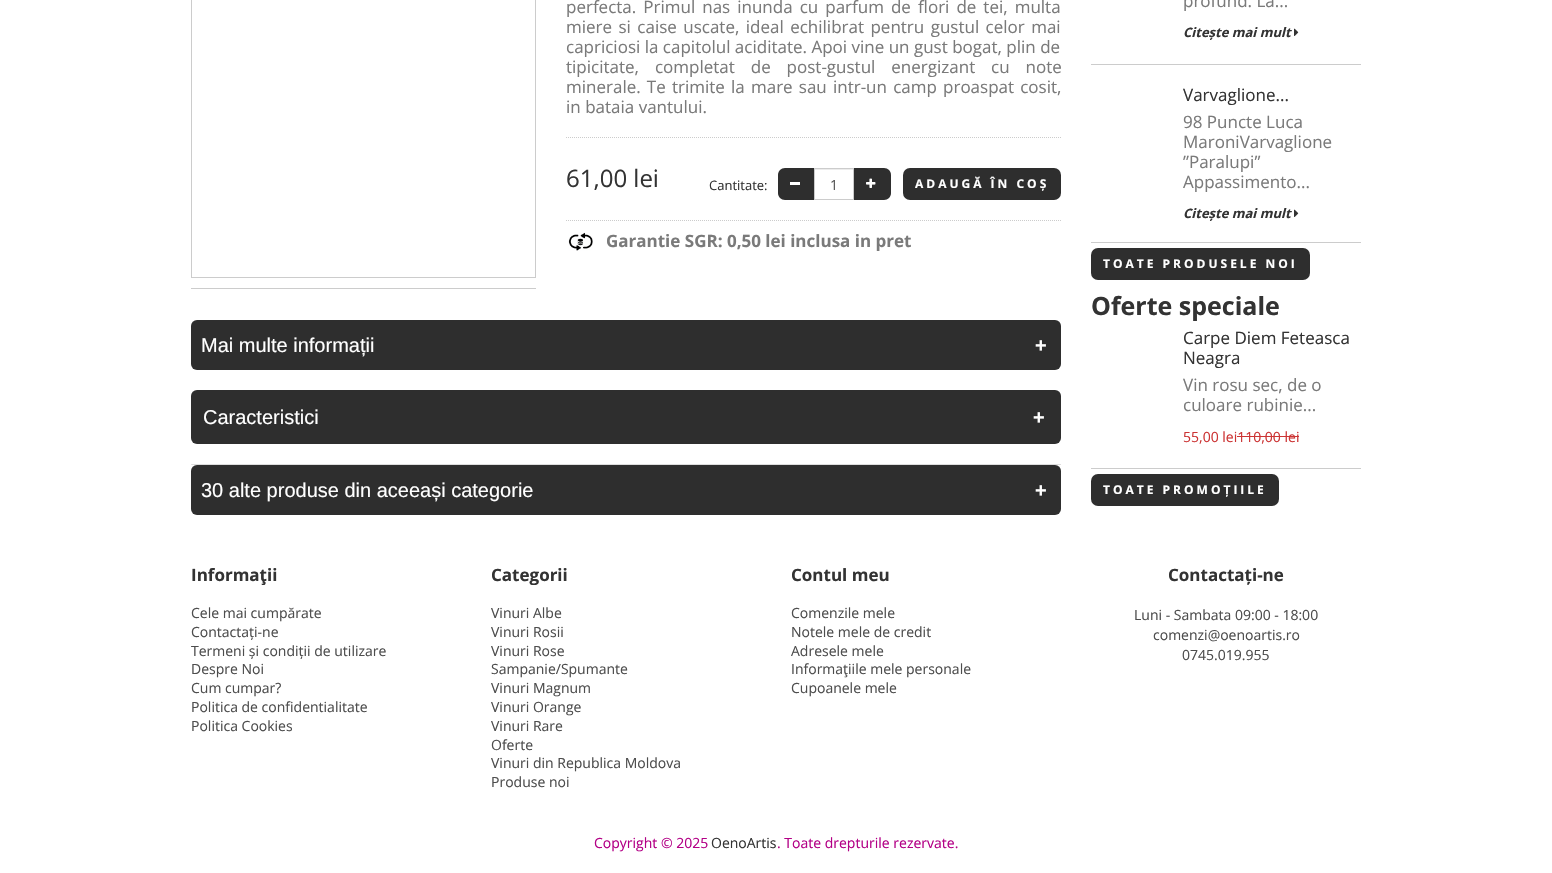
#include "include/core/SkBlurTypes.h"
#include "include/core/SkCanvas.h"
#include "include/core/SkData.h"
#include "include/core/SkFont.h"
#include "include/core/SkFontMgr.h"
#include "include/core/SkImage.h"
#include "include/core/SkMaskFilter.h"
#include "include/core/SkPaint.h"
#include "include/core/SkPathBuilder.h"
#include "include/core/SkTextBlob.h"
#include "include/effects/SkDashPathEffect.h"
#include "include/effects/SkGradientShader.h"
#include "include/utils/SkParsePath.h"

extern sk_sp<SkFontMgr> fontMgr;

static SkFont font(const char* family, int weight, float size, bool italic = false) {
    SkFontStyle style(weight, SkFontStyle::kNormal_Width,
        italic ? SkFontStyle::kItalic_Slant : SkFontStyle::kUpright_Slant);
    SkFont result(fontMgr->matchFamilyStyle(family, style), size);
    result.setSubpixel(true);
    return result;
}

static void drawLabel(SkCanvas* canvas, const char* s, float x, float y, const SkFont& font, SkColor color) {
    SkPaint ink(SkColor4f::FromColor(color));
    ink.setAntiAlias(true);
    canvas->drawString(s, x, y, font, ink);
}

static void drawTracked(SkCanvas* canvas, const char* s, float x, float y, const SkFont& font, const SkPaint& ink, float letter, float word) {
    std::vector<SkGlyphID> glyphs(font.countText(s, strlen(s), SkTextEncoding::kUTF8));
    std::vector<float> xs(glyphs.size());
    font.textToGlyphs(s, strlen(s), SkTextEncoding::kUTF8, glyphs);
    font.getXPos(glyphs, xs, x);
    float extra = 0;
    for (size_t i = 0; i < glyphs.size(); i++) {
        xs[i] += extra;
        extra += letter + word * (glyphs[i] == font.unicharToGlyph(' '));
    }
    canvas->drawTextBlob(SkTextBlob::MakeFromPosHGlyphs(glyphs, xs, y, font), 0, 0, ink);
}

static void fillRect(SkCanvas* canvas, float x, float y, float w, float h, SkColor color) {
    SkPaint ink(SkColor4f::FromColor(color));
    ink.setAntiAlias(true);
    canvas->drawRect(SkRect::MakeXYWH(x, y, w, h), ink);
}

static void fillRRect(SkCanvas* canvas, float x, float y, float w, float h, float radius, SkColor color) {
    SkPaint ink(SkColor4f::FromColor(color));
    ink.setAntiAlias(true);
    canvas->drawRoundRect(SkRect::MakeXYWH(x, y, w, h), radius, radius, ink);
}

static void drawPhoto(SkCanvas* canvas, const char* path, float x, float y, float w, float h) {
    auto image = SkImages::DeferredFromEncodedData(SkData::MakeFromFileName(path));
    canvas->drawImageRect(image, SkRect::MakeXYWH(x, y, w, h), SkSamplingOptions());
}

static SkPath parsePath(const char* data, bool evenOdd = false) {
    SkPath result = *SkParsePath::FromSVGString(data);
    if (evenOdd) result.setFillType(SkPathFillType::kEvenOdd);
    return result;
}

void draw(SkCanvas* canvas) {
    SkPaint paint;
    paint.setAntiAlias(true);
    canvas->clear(0xFFFFFFFF);
    paint.setStroke(true);
    paint.setStrokeWidth(1);
    paint.setColor(0xFFCCCCCC);
    canvas->drawRect(SkRect::MakeXYWH(191.5f, -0.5f, 344, 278), paint);
    fillRect(canvas, 191, 288, 345, 1, 0xFFCCCCCC);
    SkFont font1 = font("Open Sans", 400, 17);
    paint.setStroke(false);
    paint.setColor(0xFF7A7A7A);
    drawTracked(canvas, "perfecta. Primul nas inunda cu parfum de flori de tei, multa", 566, 13, font1, paint, 0, 2.6f);
    drawTracked(canvas, "miere si caise uscate, ideal echilibrat pentru gustul celor mai", 566, 33, font1, paint, 0, 2);
    drawLabel(canvas, "capriciosi la capitolul aciditate. Apoi vine un gust bogat, plin de", 566, 53, font1, 0xFF7A7A7A);
    drawTracked(canvas, "tipicitate, completat de post-gustul energizant cu note", 566, 73, font1, paint, 0, 11.5f);
    drawTracked(canvas, "minerale. Te trimite la mare sau intr-un camp proaspat cosit,", 566, 93, font1, paint, 0, 1.75f);
    drawLabel(canvas, "in bataia vantului.", 566, 113, font1, 0xFF7A7A7A);
    paint.setStroke(true);
    paint.setColor(0xFFCCCCCC);
    paint.setPathEffect(SkDashPathEffect::Make({{1, 1}}, 0));
    canvas->drawPath(parsePath("M566 137.5H1061"), paint);
    paint.setPathEffect(nullptr);
    paint.setPathEffect(SkDashPathEffect::Make({{1, 1}}, 0));
    canvas->drawPath(parsePath("M566 220.5H1061"), paint);
    paint.setPathEffect(nullptr);
    SkFont font2 = font("Open Sans", 400, 24);
    drawLabel(canvas, "61,00 lei", 566, 187, font2, 0xFF333333);
    SkFont font3 = font("Open Sans", 400, 13);
    drawLabel(canvas, "Cantitate:", 709, 190, font3, 0xFF333333);
    paint.setStroke(false);
    paint.setColor(0xFF2E2E2E);
    canvas->drawPath(parsePath("M785 168H814V200H785C781 200 778 197 778 193V175C778 171 781 168 785 168Z"), paint);
    fillRect(canvas, 790, 182, 10, 3, 0xFFFFFFFF);
    fillRect(canvas, 815, 169, 38, 1, 0xFFECECEC);
    paint.setStroke(true);
    paint.setColor(0xFFCCCCCC);
    canvas->drawRect(SkRect::MakeXYWH(814.5f, 168.5f, 39, 31), paint);
    SkFont font4 = font("Open Sans", 400, 14);
    drawLabel(canvas, "1", 830, 190, font4, 0xFF555555);
    paint.setStroke(false);
    paint.setColor(0xFF2E2E2E);
    canvas->drawPath(parsePath("M854 168H884C888 168 891 171 891 175V193C891 197 888 200 884 200H854Z"), paint);
    drawPhoto(canvas, "assets/img1.png", 866, 178, 10, 10);
    fillRRect(canvas, 903, 168, 158, 32, 7, 0xFF2E2E2E);
    SkFont font5 = font("Open Sans", 700, 12);
    paint.setColor(0xFFFFFFFF);
    drawTracked(canvas, "ADAUGĂ ÎN COȘ", 915, 188, font5, paint, 3, 0);
    drawPhoto(canvas, "assets/img2.png", 568, 232, 25, 19);
    SkFont font6 = font("Open Sans", 700, 17);
    drawLabel(canvas, "Garantie SGR: 0,50 lei inclusa in pret", 606, 247, font6, 0xFF7A7A7A);
    fillRRect(canvas, 191, 320, 870, 50, 6, 0xFF2E2E2E);
    SkFont font7 = font("Liberation Sans", 400, 20);
    drawLabel(canvas, "Mai multe informații", 201, 352, font7, 0xFFFFFFFF);
    SkFont font8 = font("Liberation Sans", 700, 20);
    drawLabel(canvas, "+", 1035, 352, font8, 0xFFFFFFFF);
    fillRRect(canvas, 191, 390, 870, 54, 6, 0xFF2E2E2E);
    drawLabel(canvas, "Caracteristici", 203, 424, font7, 0xFFFFFFFF);
    drawLabel(canvas, "+", 1033, 424, font8, 0xFFFFFFFF);
    fillRect(canvas, 192, 464, 869, 1, 0xFFDDDDDD);
    paint.setColor(0xFFDDDDDD);
    canvas->drawCircle(191.5f, 464.5f, 0.5f, paint);
    fillRRect(canvas, 191, 465, 870, 50, 6, 0xFF2E2E2E);
    drawLabel(canvas, "30 alte produse din aceeași categorie", 201, 497, font7, 0xFFFFFFFF);
    drawLabel(canvas, "+", 1035, 497, font8, 0xFFFFFFFF);
    fillRect(canvas, 1091, 64, 270, 1, 0xFFCCCCCC);
    drawLabel(canvas, "profund. La...", 1183, 7, font1, 0xFF7A7A7A);
    SkFont font9 = font("Open Sans", 700, 13, true);
    drawLabel(canvas, "Citește mai mult", 1183, 37, font9, 0xFF333333);
    drawPhoto(canvas, "assets/img3.png", 1294, 28, 5, 8);
    fillRect(canvas, 1091, 242, 270, 1, 0xFFCCCCCC);
    drawLabel(canvas, "Varvaglione...", 1183, 101, font1, 0xFF333333);
    drawLabel(canvas, "98 Puncte Luca", 1183, 128, font1, 0xFF7A7A7A);
    drawLabel(canvas, "MaroniVarvaglione", 1183, 148, font1, 0xFF7A7A7A);
    drawLabel(canvas, "”Paralupi”", 1183, 168, font1, 0xFF7A7A7A);
    drawLabel(canvas, "Appassimento...", 1183, 188, font1, 0xFF7A7A7A);
    drawLabel(canvas, "Citește mai mult", 1183, 218, font9, 0xFF333333);
    drawPhoto(canvas, "assets/img3.png", 1294, 209, 5, 8);
    fillRRect(canvas, 1091, 248, 219, 32, 7, 0xFF2E2E2E);
    paint.setColor(0xFFFFFFFF);
    drawTracked(canvas, "TOATE PRODUSELE NOI", 1103, 268, font5, paint, 3, 0);
    SkFont font10 = font("Open Sans", 700, 25);
    drawLabel(canvas, "Oferte speciale", 1091, 315, font10, 0xFF333333);
    fillRect(canvas, 1091, 468, 270, 1, 0xFFCCCCCC);
    drawLabel(canvas, "Carpe Diem Feteasca", 1183, 344, font1, 0xFF333333);
    drawLabel(canvas, "Neagra", 1183, 364, font1, 0xFF333333);
    drawLabel(canvas, "Vin rosu sec, de o", 1183, 391, font1, 0xFF7A7A7A);
    drawLabel(canvas, "culoare rubinie...", 1183, 411, font1, 0xFF7A7A7A);
    drawLabel(canvas, "55,00 lei110,00 lei", 1183, 442, font4, 0xFFCC3434);
    fillRect(canvas, 1237, 436, 62, 1, 0xFFCC3434);
    fillRRect(canvas, 1091, 474, 188, 32, 7, 0xFF2E2E2E);
    drawTracked(canvas, "TOATE PROMOȚIILE", 1103, 494, font5, paint, 3, 0);
    drawLabel(canvas, "Informaţii", 191, 581, font6, 0xFF333333);
    drawLabel(canvas, "Cele mai cumpărate", 191, 618, font4, 0xFF4D4D4D);
    drawLabel(canvas, "Contactați-ne", 191, 637, font4, 0xFF4D4D4D);
    drawLabel(canvas, "Termeni și condiții de utilizare", 191, 656, font4, 0xFF4D4D4D);
    drawLabel(canvas, "Despre Noi", 191, 674, font4, 0xFF4D4D4D);
    drawLabel(canvas, "Cum cumpar?", 191, 693, font4, 0xFF4D4D4D);
    drawLabel(canvas, "Politica de confidentialitate", 191, 712, font4, 0xFF4D4D4D);
    drawLabel(canvas, "Politica Cookies", 191, 731, font4, 0xFF4D4D4D);
    drawLabel(canvas, "Categorii", 491, 581, font6, 0xFF333333);
    drawLabel(canvas, "Vinuri Albe", 491, 618, font4, 0xFF4D4D4D);
    drawLabel(canvas, "Vinuri Rosii", 491, 637, font4, 0xFF4D4D4D);
    drawLabel(canvas, "Vinuri Rose", 491, 656, font4, 0xFF4D4D4D);
    drawLabel(canvas, "Sampanie/Spumante", 491, 674, font4, 0xFF4D4D4D);
    drawLabel(canvas, "Vinuri Magnum", 491, 693, font4, 0xFF4D4D4D);
    drawLabel(canvas, "Vinuri Orange", 491, 712, font4, 0xFF4D4D4D);
    drawLabel(canvas, "Vinuri Rare", 491, 731, font4, 0xFF4D4D4D);
    drawLabel(canvas, "Oferte", 491, 750, font4, 0xFF4D4D4D);
    drawLabel(canvas, "Vinuri din Republica Moldova", 491, 768, font4, 0xFF4D4D4D);
    drawLabel(canvas, "Produse noi", 491, 787, font4, 0xFF4D4D4D);
    drawLabel(canvas, "Contul meu", 791, 581, font6, 0xFF333333);
    drawLabel(canvas, "Comenzile mele", 791, 618, font4, 0xFF4D4D4D);
    drawLabel(canvas, "Notele mele de credit", 791, 637, font4, 0xFF4D4D4D);
    drawLabel(canvas, "Adresele mele", 791, 656, font4, 0xFF4D4D4D);
    drawLabel(canvas, "Informaţiile mele personale", 791, 674, font4, 0xFF4D4D4D);
    drawLabel(canvas, "Cupoanele mele", 791, 693, font4, 0xFF4D4D4D);
    drawLabel(canvas, "Contactați-ne", 1168, 581, font6, 0xFF333333);
    drawLabel(canvas, "Luni - Sambata 09:00 - 18:00", 1134, 620, font4, 0xFF4D4D4D);
    drawLabel(canvas, "comenzi@oenoartis.ro", 1153, 640, font4, 0xFF4D4D4D);
    drawLabel(canvas, "0745.019.955", 1182, 660, font4, 0xFF4D4D4D);
    drawLabel(canvas, "Copyright © 2025", 594, 848, font4, 0xFFB30086);
    drawLabel(canvas, "OenoArtis", 711, 848, font4, 0xFF333333);
    drawLabel(canvas, ". Toate drepturile rezervate.", 777, 848, font4, 0xFFB30086);
}
